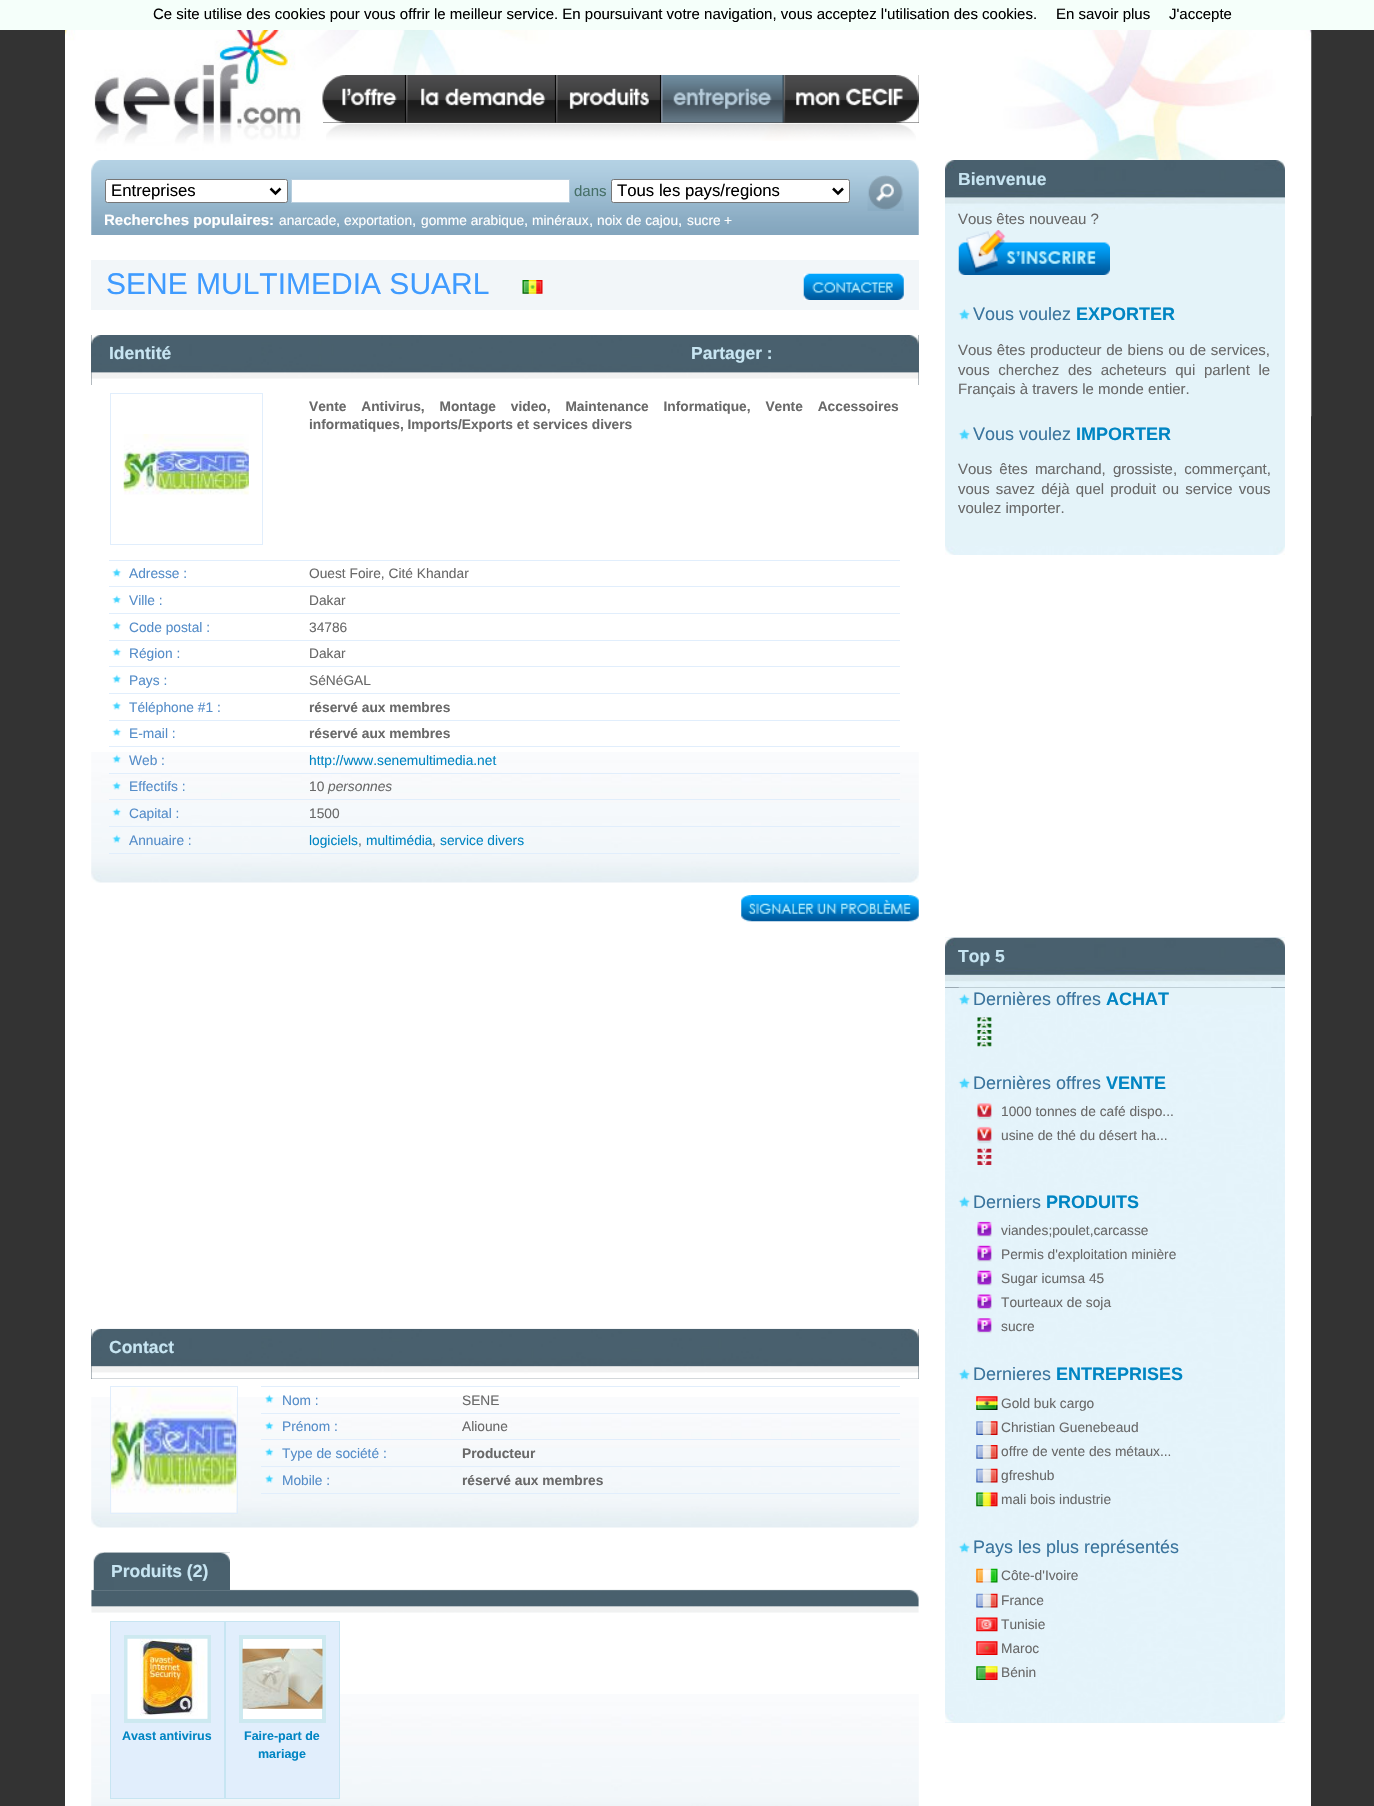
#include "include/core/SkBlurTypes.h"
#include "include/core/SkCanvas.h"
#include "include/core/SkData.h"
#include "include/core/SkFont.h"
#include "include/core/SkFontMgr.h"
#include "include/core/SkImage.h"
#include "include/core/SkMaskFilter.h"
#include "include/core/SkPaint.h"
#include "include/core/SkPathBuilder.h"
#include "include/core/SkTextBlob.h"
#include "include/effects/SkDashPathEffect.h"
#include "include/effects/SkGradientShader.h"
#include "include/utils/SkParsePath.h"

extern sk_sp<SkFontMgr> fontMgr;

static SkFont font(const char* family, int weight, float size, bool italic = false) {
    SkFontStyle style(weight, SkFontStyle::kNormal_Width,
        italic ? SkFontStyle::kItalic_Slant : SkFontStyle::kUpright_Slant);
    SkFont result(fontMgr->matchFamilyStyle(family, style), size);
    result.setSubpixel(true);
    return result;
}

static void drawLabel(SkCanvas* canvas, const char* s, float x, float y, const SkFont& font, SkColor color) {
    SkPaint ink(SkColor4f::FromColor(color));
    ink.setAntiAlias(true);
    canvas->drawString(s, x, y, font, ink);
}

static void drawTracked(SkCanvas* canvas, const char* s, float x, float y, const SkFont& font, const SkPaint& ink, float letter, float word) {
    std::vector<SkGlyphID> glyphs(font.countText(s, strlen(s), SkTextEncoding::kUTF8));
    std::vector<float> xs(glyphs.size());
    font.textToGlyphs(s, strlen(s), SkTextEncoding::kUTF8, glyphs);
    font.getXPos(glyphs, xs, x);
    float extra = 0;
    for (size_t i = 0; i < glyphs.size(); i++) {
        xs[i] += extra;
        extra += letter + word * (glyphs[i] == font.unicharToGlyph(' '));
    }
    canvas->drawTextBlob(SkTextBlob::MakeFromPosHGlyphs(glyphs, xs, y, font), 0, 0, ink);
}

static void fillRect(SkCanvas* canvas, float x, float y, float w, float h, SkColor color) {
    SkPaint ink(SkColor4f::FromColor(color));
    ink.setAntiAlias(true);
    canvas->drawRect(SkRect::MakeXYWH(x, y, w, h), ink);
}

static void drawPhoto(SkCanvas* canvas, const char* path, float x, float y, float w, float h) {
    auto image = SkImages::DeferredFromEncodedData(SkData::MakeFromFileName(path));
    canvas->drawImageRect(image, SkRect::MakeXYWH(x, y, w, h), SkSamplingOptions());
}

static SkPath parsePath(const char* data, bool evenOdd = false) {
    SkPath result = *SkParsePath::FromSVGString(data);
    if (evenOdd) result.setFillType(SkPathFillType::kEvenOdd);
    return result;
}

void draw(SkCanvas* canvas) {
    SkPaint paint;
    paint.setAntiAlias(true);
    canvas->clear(0xFF333333);
    fillRect(canvas, 0, 0, 1374, 30, 0xFFF5FFFA);
    SkFont font1 = font("Liberation Sans", 400, 15);
    drawLabel(canvas, "Ce site utilise des cookies pour vous offrir le meilleur service. En poursuivant votre navigation, vous acceptez l'utilisation des cookies.", 153, 19, font1, 0xFF000000);
    drawLabel(canvas, "En savoir plus", 1056, 19, font1, 0xFF000000);
    drawLabel(canvas, "J'accepte", 1169, 19, font1, 0xFF000000);
    fillRect(canvas, 65, 416, 1246, 1390, 0xFFFFFFFF);
    drawPhoto(canvas, "assets/img1.png", 65, 30, 1247, 387);
    drawPhoto(canvas, "assets/img2.png", 326, 123, 590, 18);
    fillRect(canvas, 323, 122, 83, 1, 0xFF444444);
    drawPhoto(canvas, "assets/img3.png", 322, 75, 84, 48);
    fillRect(canvas, 406, 75, 513, 48, 0xFF444444);
    drawPhoto(canvas, "assets/img4.png", 406, 75, 150, 48);
    drawPhoto(canvas, "assets/img5.png", 556, 75, 105, 48);
    drawPhoto(canvas, "assets/img6.png", 661, 75, 123, 48);
    drawPhoto(canvas, "assets/img7.png", 783, 75, 136, 48);
    drawPhoto(canvas, "assets/img8.png", 91, 160, 828, 75);
    paint.setColor(0xFFFFFFFF);
    canvas->drawRoundRect(SkRect::MakeXYWH(105.5f, 179.5f, 182, 23), 2, 2, paint);
    paint.setStroke(true);
    paint.setStrokeWidth(1);
    paint.setColor(0xFF767676);
    canvas->drawRoundRect(SkRect::MakeXYWH(105.5f, 179.5f, 182, 23), 2, 2, paint);
    paint.setStrokeWidth(2.5f);
    paint.setColor(0xFF000000);
    canvas->drawPath(parsePath("M270.5 188.5L275.5 193.5L280.5 188.5"), paint);
    SkFont font2 = font("Liberation Sans", 400, 16.75f);
    drawLabel(canvas, "Entreprises", 111, 196, font2, 0xFF000000);
    paint.setStroke(false);
    paint.setColor(0xFFFFFFFF);
    canvas->drawRect(SkRect::MakeXYWH(291.5f, 179.5f, 278, 23), paint);
    paint.setStroke(true);
    paint.setStrokeWidth(1);
    paint.setColor(0xFFB8CEDE);
    canvas->drawRect(SkRect::MakeXYWH(291.5f, 179.5f, 278, 23), paint);
    drawLabel(canvas, "dans", 574, 196, font1, 0xFF477068);
    paint.setStroke(false);
    paint.setColor(0xFFFFFFFF);
    canvas->drawRoundRect(SkRect::MakeXYWH(611.5f, 179.5f, 238, 23), 2, 2, paint);
    paint.setStroke(true);
    paint.setColor(0xFF767676);
    canvas->drawRoundRect(SkRect::MakeXYWH(611.5f, 179.5f, 238, 23), 2, 2, paint);
    paint.setStrokeWidth(2.5f);
    paint.setColor(0xFF000000);
    canvas->drawPath(parsePath("M833 188.5L838 193.5L843 188.5"), paint);
    drawLabel(canvas, "Tous les pays/regions", 617, 196, font2, 0xFF000000);
    drawPhoto(canvas, "assets/img9.png", 867, 175, 37, 36);
    SkFont font3 = font("Liberation Sans", 700, 15);
    drawLabel(canvas, "Recherches populaires:", 104, 225, font3, 0xFFFFFFFF);
    SkFont font4 = font("Liberation Sans", 400, 13.75f);
    drawLabel(canvas, "anarcade", 279, 225, font4, 0xFFFFFFFF);
    drawLabel(canvas, "exportation", 344, 225, font4, 0xFFFFFFFF);
    drawLabel(canvas, "gomme arabique", 421, 225, font4, 0xFFFFFFFF);
    drawLabel(canvas, "minéraux", 532, 225, font4, 0xFFFFFFFF);
    drawLabel(canvas, "noix de cajou", 597, 225, font4, 0xFFFFFFFF);
    drawLabel(canvas, "sucre", 687, 225, font4, 0xFFFFFFFF);
    drawLabel(canvas, "+", 724, 225, font4, 0xFFFFFFFF);
    drawLabel(canvas, ",", 336, 225, font1, 0xFFFFFFFF);
    drawLabel(canvas, ",", 412, 225, font1, 0xFFFFFFFF);
    drawLabel(canvas, ",", 524, 225, font1, 0xFFFFFFFF);
    drawLabel(canvas, ",", 589, 225, font1, 0xFFFFFFFF);
    drawLabel(canvas, ",", 678, 225, font1, 0xFFFFFFFF);
    fillRect(canvas, 91, 260, 828, 50, 0xFFF2F6F9);
    SkFont font5 = font("Liberation Sans", 400, 30);
    drawLabel(canvas, "SENE MULTIMEDIA SUARL", 106, 294, font5, 0xFF3F9BFF);
    drawPhoto(canvas, "assets/img10.png", 522, 280, 21, 14);
    drawPhoto(canvas, "assets/img11.png", 803, 273, 101, 27);
    drawPhoto(canvas, "assets/img12.png", 91, 752, 828, 131);
    fillRect(canvas, 91, 335, 828, 50, 0xFF4F606C);
    drawPhoto(canvas, "assets/img13.png", 91, 335, 828, 50);
    SkFont font6 = font("Liberation Sans", 700, 17.5f);
    drawLabel(canvas, "Identité", 109, 359, font6, 0xFFC7E5F2);
    drawLabel(canvas, "Partager :", 691, 359, font6, 0xFFC7E5F2);
    paint.setStrokeWidth(1);
    paint.setColor(0xFFE1EEFC);
    canvas->drawRect(SkRect::MakeXYWH(110.5f, 393.5f, 152, 151), paint);
    drawPhoto(canvas, "assets/img14.png", 123, 434, 126, 61);
    SkFont font7 = font("Liberation Sans", 700, 13.75f);
    paint.setStroke(false);
    paint.setColor(0xFF696969);
    drawTracked(canvas, "Vente Antivirus, Montage video, Maintenance Informatique, Vente Accessoires", 309, 411, font7, paint, 0, 11);
    drawLabel(canvas, "informatiques, Imports/Exports et services divers", 309, 429, font7, 0xFF696969);
    fillRect(canvas, 109, 560, 791, 1, 0xFFE1EEFC);
    drawPhoto(canvas, "assets/img15.png", 112, 568, 10, 9);
    drawLabel(canvas, "Adresse :", 129, 578, font4, 0xFF558DC9);
    drawLabel(canvas, "Ouest Foire, Cité Khandar", 309, 578, font4, 0xFF696969);
    fillRect(canvas, 109, 586, 791, 1, 0xFFE1EEFC);
    drawPhoto(canvas, "assets/img16.png", 112, 595, 10, 9);
    drawLabel(canvas, "Ville :", 129, 605, font4, 0xFF558DC9);
    drawLabel(canvas, "Dakar", 309, 605, font4, 0xFF696969);
    fillRect(canvas, 109, 613, 791, 1, 0xFFE1EEFC);
    drawPhoto(canvas, "assets/img17.png", 112, 621, 10, 9);
    drawLabel(canvas, "Code postal :", 129, 632, font4, 0xFF558DC9);
    drawLabel(canvas, "34786", 309, 632, font4, 0xFF696969);
    fillRect(canvas, 109, 640, 791, 1, 0xFFE1EEFC);
    drawPhoto(canvas, "assets/img18.png", 112, 648, 10, 8);
    drawLabel(canvas, "Région :", 129, 658, font4, 0xFF558DC9);
    drawLabel(canvas, "Dakar", 309, 658, font4, 0xFF696969);
    fillRect(canvas, 109, 666, 791, 1, 0xFFE1EEFC);
    drawPhoto(canvas, "assets/img19.png", 112, 674, 10, 9);
    drawLabel(canvas, "Pays :", 129, 685, font4, 0xFF558DC9);
    drawLabel(canvas, "SéNéGAL", 309, 685, font4, 0xFF696969);
    fillRect(canvas, 109, 693, 791, 1, 0xFFE1EEFC);
    drawPhoto(canvas, "assets/img17.png", 112, 701, 10, 9);
    drawLabel(canvas, "Téléphone #1 :", 129, 712, font4, 0xFF558DC9);
    drawLabel(canvas, "réservé aux membres", 309, 712, font7, 0xFF696969);
    fillRect(canvas, 109, 720, 791, 1, 0xFFE1EEFC);
    drawPhoto(canvas, "assets/img18.png", 112, 728, 10, 8);
    drawLabel(canvas, "E-mail :", 129, 738, font4, 0xFF558DC9);
    drawLabel(canvas, "réservé aux membres", 309, 738, font7, 0xFF696969);
    fillRect(canvas, 109, 746, 791, 1, 0xFFE1EEFC);
    drawPhoto(canvas, "assets/img20.png", 112, 754, 10, 9);
    drawLabel(canvas, "Web :", 129, 765, font4, 0xFF558DC9);
    drawLabel(canvas, "http://www.senemultimedia.net", 309, 765, font4, 0xFF0085C3);
    fillRect(canvas, 109, 773, 791, 1, 0xFFE1EEFC);
    drawPhoto(canvas, "assets/img21.png", 112, 781, 10, 9);
    drawLabel(canvas, "Effectifs :", 129, 791, font4, 0xFF558DC9);
    drawLabel(canvas, "10", 309, 791, font4, 0xFF696969);
    SkFont font8 = font("Liberation Sans", 400, 13.75f, true);
    drawLabel(canvas, "personnes", 328, 791, font8, 0xFF696969);
    fillRect(canvas, 109, 799, 791, 1, 0xFFE1EEFC);
    drawPhoto(canvas, "assets/img22.png", 112, 808, 10, 8);
    drawLabel(canvas, "Capital :", 129, 818, font4, 0xFF558DC9);
    drawLabel(canvas, "1500", 309, 818, font4, 0xFF696969);
    fillRect(canvas, 109, 826, 791, 1, 0xFFE1EEFC);
    fillRect(canvas, 109, 853, 791, 1, 0xFFE1EEFC);
    drawPhoto(canvas, "assets/img23.png", 112, 834, 9, 9);
    drawLabel(canvas, "Annuaire :", 129, 845, font4, 0xFF558DC9);
    drawLabel(canvas, "logiciels", 309, 845, font4, 0xFF0085C3);
    drawLabel(canvas, ",", 358, 845, font4, 0xFF696969);
    drawLabel(canvas, "multimédia", 366, 845, font4, 0xFF0085C3);
    drawLabel(canvas, ",", 432, 845, font4, 0xFF696969);
    drawLabel(canvas, "service divers", 440, 845, font4, 0xFF0085C3);
    drawPhoto(canvas, "assets/img24.png", 741, 895, 178, 27);
    drawPhoto(canvas, "assets/img25.png", 91, 1397, 828, 131);
    fillRect(canvas, 91, 1329, 828, 50, 0xFF4F606C);
    drawPhoto(canvas, "assets/img26.png", 91, 1328, 828, 51);
    drawLabel(canvas, "Contact", 109, 1353, font6, 0xFFC7E5F2);
    paint.setStroke(true);
    paint.setColor(0xFFE1EEFC);
    canvas->drawRect(SkRect::MakeXYWH(110.5f, 1386.5f, 127, 127), paint);
    drawPhoto(canvas, "assets/img27.png", 111, 1387, 126, 126);
    fillRect(canvas, 261, 1386, 639, 1, 0xFFE1EEFC);
    drawPhoto(canvas, "assets/img28.png", 265, 1394, 9, 9);
    drawLabel(canvas, "Nom :", 282, 1405, font4, 0xFF558DC9);
    drawLabel(canvas, "SENE", 462, 1405, font4, 0xFF696969);
    fillRect(canvas, 261, 1413, 639, 1, 0xFFE1EEFC);
    drawPhoto(canvas, "assets/img29.png", 265, 1421, 9, 9);
    drawLabel(canvas, "Prénom :", 282, 1431, font4, 0xFF558DC9);
    drawLabel(canvas, "Alioune", 462, 1431, font4, 0xFF696969);
    fillRect(canvas, 261, 1439, 639, 1, 0xFFE1EEFC);
    drawPhoto(canvas, "assets/img30.png", 265, 1448, 9, 8);
    drawLabel(canvas, "Type de société :", 282, 1458, font4, 0xFF558DC9);
    drawLabel(canvas, "Producteur", 462, 1458, font7, 0xFF696969);
    fillRect(canvas, 261, 1466, 639, 1, 0xFFE1EEFC);
    fillRect(canvas, 261, 1493, 639, 1, 0xFFE1EEFC);
    drawPhoto(canvas, "assets/img31.png", 265, 1474, 9, 9);
    drawLabel(canvas, "Mobile :", 282, 1485, font4, 0xFF558DC9);
    drawLabel(canvas, "réservé aux membres", 462, 1485, font7, 0xFF696969);
    drawPhoto(canvas, "assets/img32.png", 91, 1694, 828, 112);
    drawPhoto(canvas, "assets/img33.png", 91, 1589, 828, 24);
    drawPhoto(canvas, "assets/img34.png", 93, 1552, 137, 38);
    drawPhoto(canvas, "assets/img35.png", 103, 1552, 127, 10);
    drawLabel(canvas, "Produits (2)", 111, 1577, font6, 0xFFC7E5F2);
    paint.setStroke(false);
    canvas->drawRect(SkRect::MakeXYWH(110.5f, 1621.5f, 114, 177), paint);
    paint.setStroke(true);
    paint.setColor(0xFFC7E5F2);
    canvas->drawRect(SkRect::MakeXYWH(110.5f, 1621.5f, 114, 177), paint);
    paint.setStrokeWidth(4);
    paint.setColor(0xFFCDE9F0);
    canvas->drawRect(SkRect::MakeXYWH(126, 1637, 83, 84), paint);
    drawPhoto(canvas, "assets/img36.png", 127, 1638, 81, 81);
    SkFont font9 = font("Liberation Sans", 700, 12.5f);
    drawLabel(canvas, "Avast antivirus", 122, 1740, font9, 0xFF0085C3);
    paint.setStroke(false);
    paint.setColor(0xFFE1EEFC);
    canvas->drawRect(SkRect::MakeXYWH(225.5f, 1621.5f, 114, 177), paint);
    paint.setStroke(true);
    paint.setStrokeWidth(1);
    paint.setColor(0xFFC7E5F2);
    canvas->drawRect(SkRect::MakeXYWH(225.5f, 1621.5f, 114, 177), paint);
    paint.setStroke(false);
    paint.setColor(0xFFFFFFFF);
    canvas->drawRect(SkRect::MakeXYWH(241, 1637, 83, 84), paint);
    paint.setStroke(true);
    paint.setStrokeWidth(4);
    paint.setColor(0xFFCDE9F0);
    canvas->drawRect(SkRect::MakeXYWH(241, 1637, 83, 84), paint);
    drawPhoto(canvas, "assets/img37.png", 242, 1648, 81, 61);
    drawLabel(canvas, "Faire-part de", 244, 1740, font9, 0xFF0085C3);
    drawLabel(canvas, "mariage", 258, 1758, font9, 0xFF0085C3);
    fillRect(canvas, 945, 210, 340, 336, 0xFFE4F3F9);
    drawPhoto(canvas, "assets/img38.png", 945, 546, 340, 9);
    drawPhoto(canvas, "assets/img39.png", 945, 160, 340, 50);
    drawLabel(canvas, "Bienvenue", 958, 185, font6, 0xFFC7E5F2);
    drawLabel(canvas, "Vous êtes nouveau ?", 958, 224, font1, 0xFF696969);
    drawPhoto(canvas, "assets/img40.png", 958, 230, 152, 45);
    drawPhoto(canvas, "assets/img41.png", 958, 309, 13, 11);
    SkFont font10 = font("Liberation Sans", 400, 18);
    drawLabel(canvas, "Vous voulez", 973, 320, font10, 0xFF3A749D);
    SkFont font11 = font("Liberation Sans", 700, 18);
    drawLabel(canvas, "EXPORTER", 1076, 320, font11, 0xFF0085C3);
    paint.setStroke(false);
    paint.setColor(0xFF696969);
    drawTracked(canvas, "Vous êtes producteur de biens ou de services,", 958, 355, font1, paint, 0, 0.5f);
    drawTracked(canvas, "vous cherchez des acheteurs qui parlent le", 958, 375, font1, paint, 0, 4.5f);
    drawLabel(canvas, "Français à travers le monde entier.", 958, 394, font1, 0xFF696969);
    drawPhoto(canvas, "assets/img41.png", 958, 429, 13, 11);
    drawLabel(canvas, "Vous voulez", 973, 440, font10, 0xFF3A749D);
    drawLabel(canvas, "IMPORTER", 1076, 440, font11, 0xFF0085C3);
    drawTracked(canvas, "Vous êtes marchand, grossiste, commerçant,", 958, 474, font1, paint, 0, 3);
    drawTracked(canvas, "vous savez déjà quel produit ou service vous", 958, 494, font1, paint, 0, 2);
    drawLabel(canvas, "voulez importer.", 958, 513, font1, 0xFF696969);
    fillRect(canvas, 945, 1722, 340, 1, 0xFFE4F3F9);
    drawPhoto(canvas, "assets/img42.png", 945, 937, 340, 786);
    fillRect(canvas, 945, 987, 340, 1, 0xFF4F606C);
    drawPhoto(canvas, "assets/img43.png", 945, 937, 340, 51);
    drawLabel(canvas, "Top 5", 958, 962, font6, 0xFFC7E5F2);
    drawPhoto(canvas, "assets/img44.png", 958, 987, 314, 18);
    drawLabel(canvas, "Dernières offres", 973, 1005, font10, 0xFF3A749D);
    drawLabel(canvas, "ACHAT", 1106, 1005, font11, 0xFF0085C3);
    drawPhoto(canvas, "assets/img45.png", 977, 1017, 15, 5);
    drawPhoto(canvas, "assets/img46.png", 977, 1023, 15, 5);
    drawPhoto(canvas, "assets/img47.png", 977, 1030, 15, 4);
    drawPhoto(canvas, "assets/img48.png", 977, 1036, 15, 4);
    drawPhoto(canvas, "assets/img49.png", 977, 1042, 15, 5);
    drawPhoto(canvas, "assets/img50.png", 958, 1077, 13, 12);
    drawLabel(canvas, "Dernières offres", 973, 1089, font10, 0xFF3A749D);
    drawLabel(canvas, "VENTE", 1106, 1089, font11, 0xFF0085C3);
    drawPhoto(canvas, "assets/img51.png", 977, 1103, 15, 17);
    drawLabel(canvas, "1000 tonnes de café dispo...", 1001, 1116, font4, 0xFF696969);
    drawPhoto(canvas, "assets/img52.png", 977, 1126, 15, 18);
    drawLabel(canvas, "usine de thé du désert ha...", 1001, 1140, font4, 0xFF696969);
    drawPhoto(canvas, "assets/img53.png", 977, 1148, 15, 5);
    drawPhoto(canvas, "assets/img54.png", 977, 1155, 15, 4);
    drawPhoto(canvas, "assets/img55.png", 977, 1161, 15, 4);
    drawPhoto(canvas, "assets/img56.png", 958, 1196, 13, 12);
    drawLabel(canvas, "Derniers", 973, 1208, font10, 0xFF3A749D);
    drawLabel(canvas, "PRODUITS", 1046, 1208, font11, 0xFF0085C3);
    drawPhoto(canvas, "assets/img57.png", 977, 1221, 15, 16);
    drawLabel(canvas, "viandes;poulet,carcasse", 1001, 1235, font4, 0xFF696969);
    drawPhoto(canvas, "assets/img58.png", 977, 1245, 15, 17);
    drawLabel(canvas, "Permis d'exploitation minière", 1001, 1259, font4, 0xFF696969);
    drawPhoto(canvas, "assets/img59.png", 977, 1270, 15, 16);
    drawLabel(canvas, "Sugar icumsa 45", 1001, 1283, font4, 0xFF696969);
    drawPhoto(canvas, "assets/img60.png", 977, 1294, 15, 16);
    drawLabel(canvas, "Tourteaux de soja", 1001, 1307, font4, 0xFF696969);
    drawPhoto(canvas, "assets/img61.png", 977, 1318, 15, 16);
    drawLabel(canvas, "sucre", 1001, 1331, font4, 0xFF696969);
    drawPhoto(canvas, "assets/img62.png", 958, 1369, 13, 11);
    drawLabel(canvas, "Dernieres", 973, 1380, font10, 0xFF3A749D);
    drawLabel(canvas, "ENTREPRISES", 1056, 1380, font11, 0xFF0085C3);
    drawPhoto(canvas, "assets/img63.png", 976, 1396, 22, 14);
    drawLabel(canvas, "Gold buk cargo", 1001, 1408, font4, 0xFF696969);
    drawPhoto(canvas, "assets/img64.png", 976, 1421, 22, 14);
    drawLabel(canvas, "Christian Guenebeaud", 1001, 1432, font4, 0xFF696969);
    drawPhoto(canvas, "assets/img65.png", 976, 1445, 22, 14);
    drawLabel(canvas, "offre de vente des métaux...", 1001, 1456, font4, 0xFF696969);
    drawPhoto(canvas, "assets/img66.png", 976, 1468, 22, 15);
    drawLabel(canvas, "gfreshub", 1001, 1480, font4, 0xFF696969);
    drawPhoto(canvas, "assets/img67.png", 976, 1492, 22, 15);
    drawLabel(canvas, "mali bois industrie", 1001, 1504, font4, 0xFF696969);
    drawPhoto(canvas, "assets/img68.png", 958, 1542, 12, 11);
    drawLabel(canvas, "Pays les plus représentés", 973, 1553, font10, 0xFF3A749D);
    drawPhoto(canvas, "assets/img69.png", 976, 1568, 22, 15);
    drawLabel(canvas, "Côte-d'Ivoire", 1001, 1580, font4, 0xFF696969);
    drawPhoto(canvas, "assets/img70.png", 976, 1593, 22, 15);
    drawLabel(canvas, "France", 1001, 1605, font4, 0xFF696969);
    drawPhoto(canvas, "assets/img71.png", 976, 1617, 22, 15);
    drawLabel(canvas, "Tunisie", 1001, 1629, font4, 0xFF696969);
    drawPhoto(canvas, "assets/img72.png", 976, 1641, 22, 14);
    drawLabel(canvas, "Maroc", 1001, 1653, font4, 0xFF696969);
    drawPhoto(canvas, "assets/img73.png", 976, 1666, 22, 14);
    drawLabel(canvas, "Bénin", 1001, 1677, font4, 0xFF696969);
}
